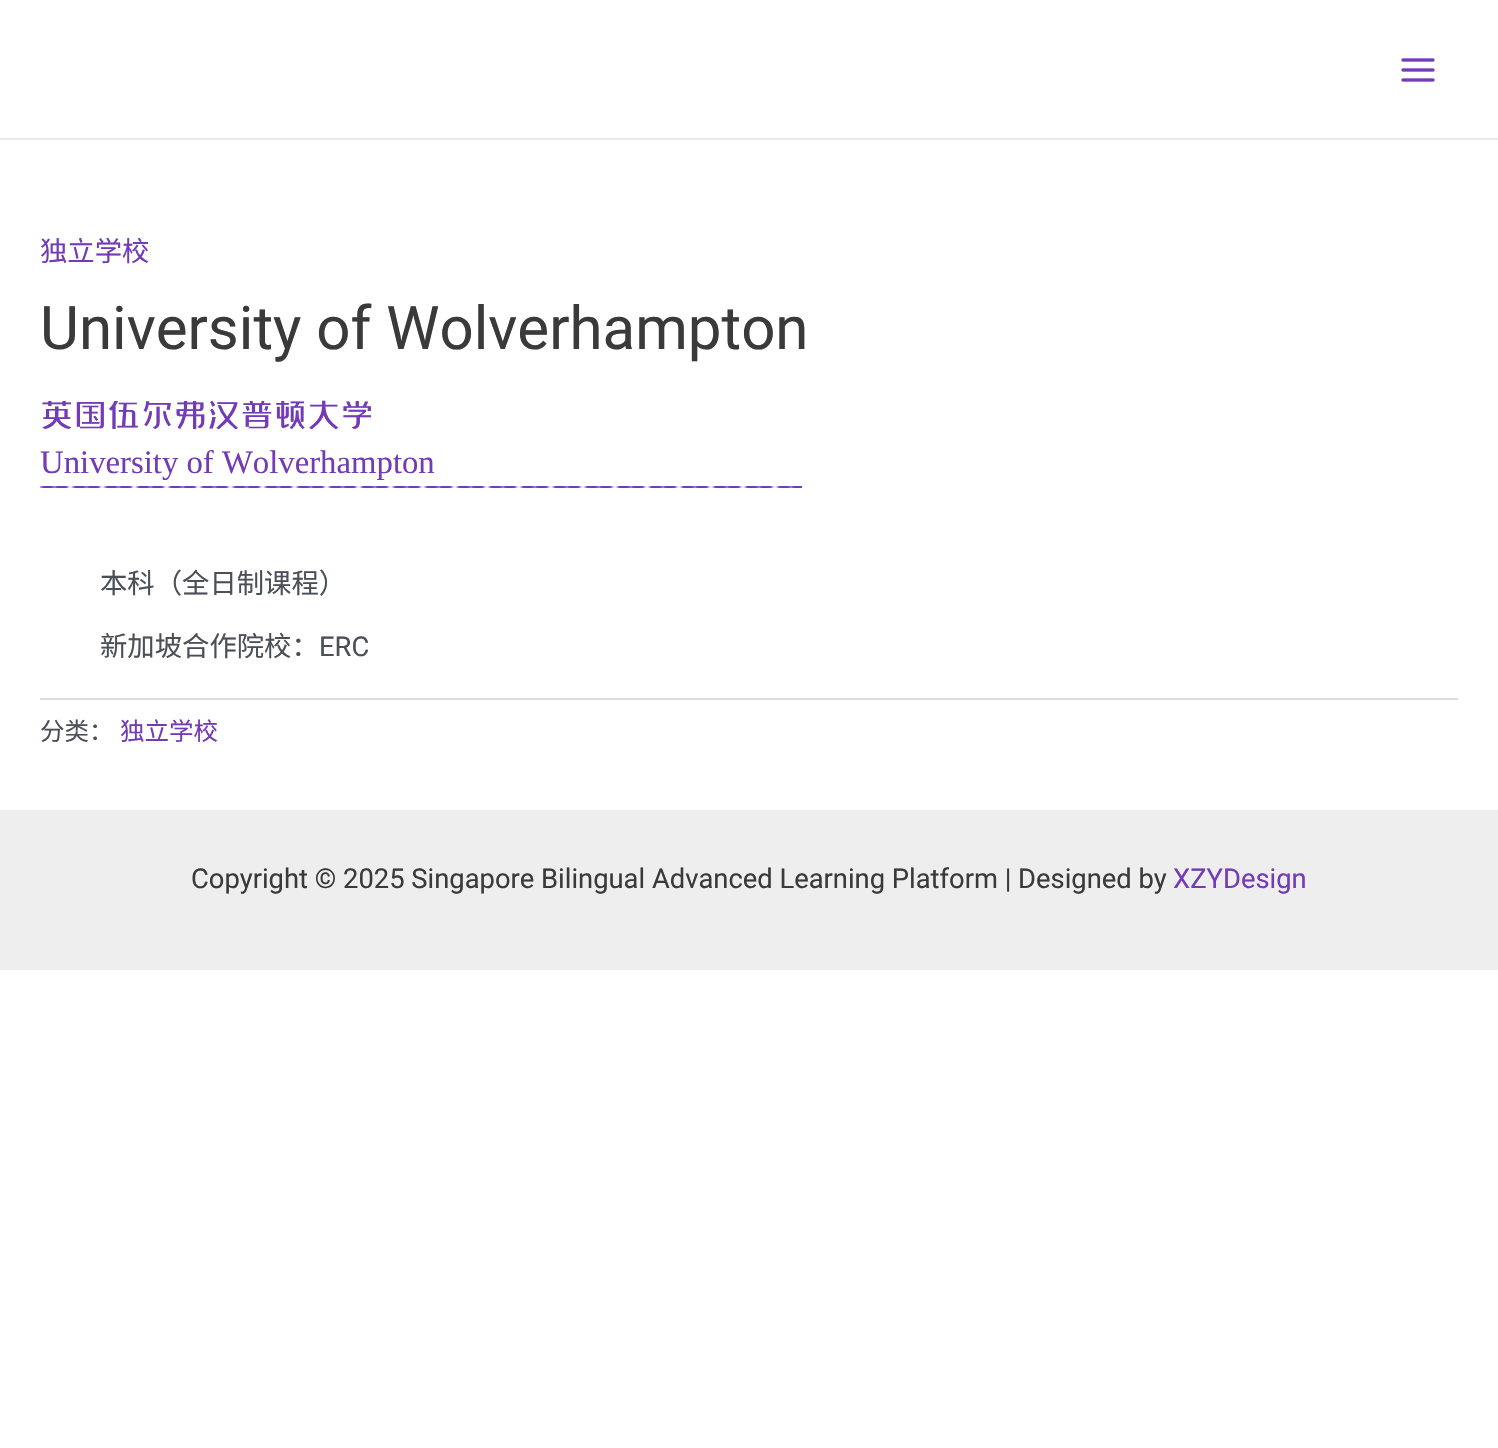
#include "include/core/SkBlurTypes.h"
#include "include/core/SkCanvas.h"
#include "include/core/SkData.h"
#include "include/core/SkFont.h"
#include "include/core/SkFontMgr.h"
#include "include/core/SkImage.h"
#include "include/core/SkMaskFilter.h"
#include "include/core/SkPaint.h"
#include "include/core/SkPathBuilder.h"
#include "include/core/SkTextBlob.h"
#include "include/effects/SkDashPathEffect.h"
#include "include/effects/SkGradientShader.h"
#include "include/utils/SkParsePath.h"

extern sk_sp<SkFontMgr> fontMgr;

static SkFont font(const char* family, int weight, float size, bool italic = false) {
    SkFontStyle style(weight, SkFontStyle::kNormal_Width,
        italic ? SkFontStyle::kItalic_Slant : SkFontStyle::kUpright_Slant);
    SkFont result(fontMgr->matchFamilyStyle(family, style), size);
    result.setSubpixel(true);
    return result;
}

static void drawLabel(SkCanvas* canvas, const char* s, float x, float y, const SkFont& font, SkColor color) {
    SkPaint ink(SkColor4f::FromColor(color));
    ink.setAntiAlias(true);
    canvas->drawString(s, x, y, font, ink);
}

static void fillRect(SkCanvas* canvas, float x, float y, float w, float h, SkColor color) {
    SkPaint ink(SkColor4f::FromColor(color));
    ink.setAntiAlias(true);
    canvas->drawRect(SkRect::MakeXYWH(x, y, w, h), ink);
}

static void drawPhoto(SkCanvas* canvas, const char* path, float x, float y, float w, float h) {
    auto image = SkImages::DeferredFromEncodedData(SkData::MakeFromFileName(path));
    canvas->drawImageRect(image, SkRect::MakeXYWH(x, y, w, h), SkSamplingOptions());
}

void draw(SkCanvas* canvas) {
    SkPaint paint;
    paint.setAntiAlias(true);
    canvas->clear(0xFFFFFFFF);
    fillRect(canvas, 0, 138, 1498, 2, 0xFFEAEAEA);
    drawPhoto(canvas, "assets/img1.png", 1401, 58, 34, 24);
    SkFont font1 = font("Noto Sans CJK SC", 400, 27.35f);
    drawLabel(canvas, "独立学校", 40, 261, font1, 0xFF743BB7);
    SkFont font2 = font("Roboto", 400, 60);
    drawLabel(canvas, "University of Wolverhampton", 40, 349, font2, 0xFF3A3A3A);
    SkFont font3 = font("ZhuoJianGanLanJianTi", 400, 32.75f);
    drawLabel(canvas, "英国伍尔弗汉普顿大学", 40, 425, font3, 0xFF743BB7);
    SkFont font4 = font("Liberation Serif", 400, 32.75f);
    drawLabel(canvas, "University of Wolverhampton", 40, 473, font4, 0xFF743BB7);
    drawPhoto(canvas, "assets/img2.png", 40, 486, 762, 2);
    drawLabel(canvas, "本科（全日制课程）", 100, 593, font1, 0xFF4B4F58);
    drawLabel(canvas, "新加坡合作院校：", 100, 656, font1, 0xFF4B4F58);
    SkFont font5 = font("Roboto", 400, 27.35f);
    drawLabel(canvas, "ERC", 319, 656, font5, 0xFF4B4F58);
    fillRect(canvas, 40, 698, 1418, 2, 0xFFDDDDDD);
    SkFont font6 = font("Noto Sans CJK SC", 400, 24.5f);
    drawLabel(canvas, "分类：", 40, 740, font6, 0xFF4B4F58);
    drawLabel(canvas, "独立学校", 120, 740, font6, 0xFF743BB7);
    fillRect(canvas, 0, 810, 1498, 160, 0xFFEEEEEE);
    drawLabel(canvas, "Copyright © 2025 Singapore Bilingual Advanced Learning Platform | Designed by", 191, 888, font5, 0xFF3A3A3A);
    drawLabel(canvas, "XZYDesign", 1173, 888, font5, 0xFF743BB7);
}
